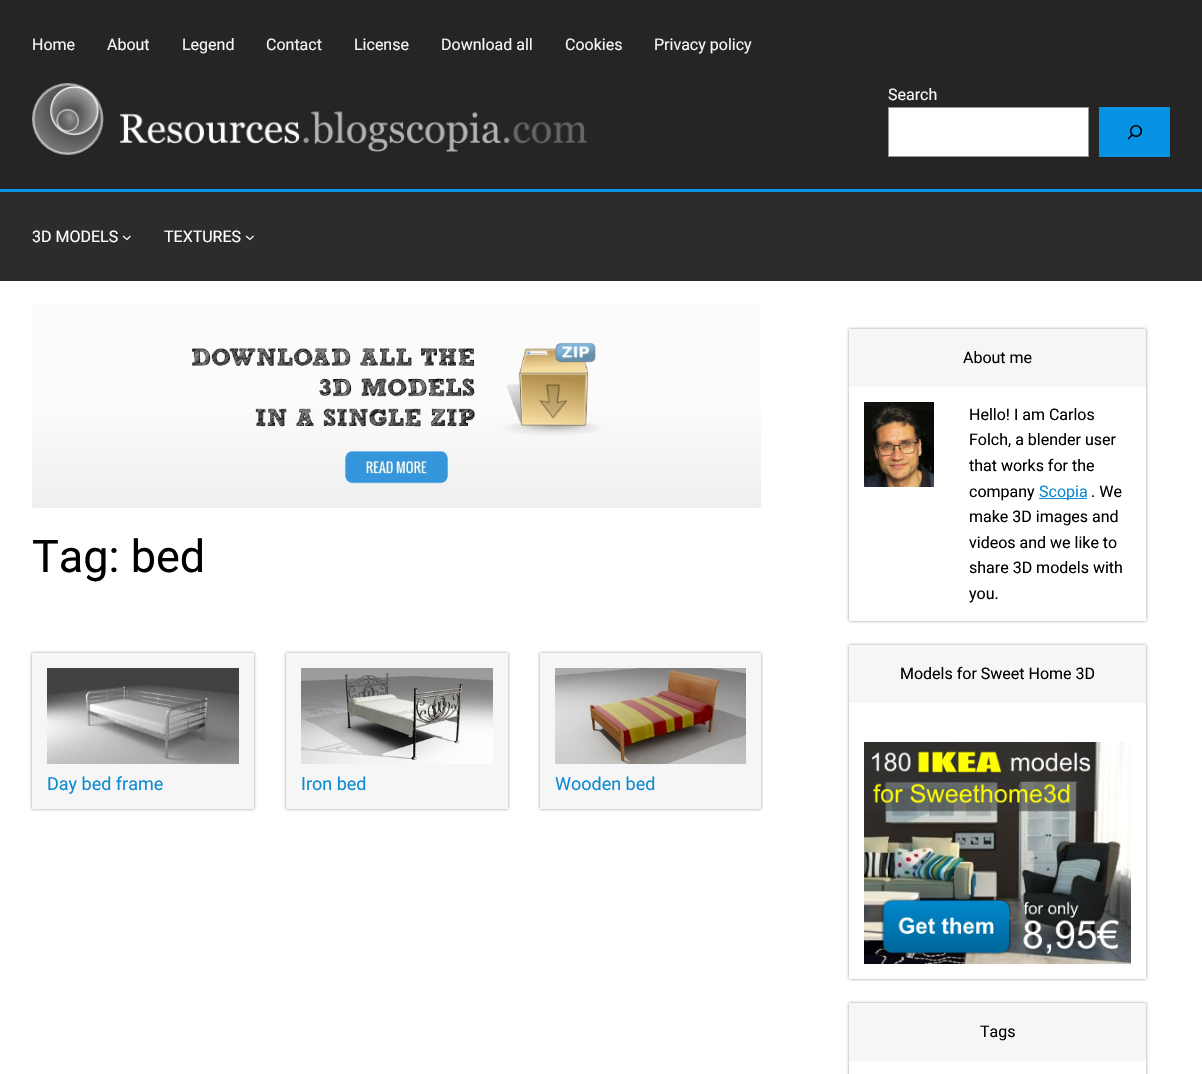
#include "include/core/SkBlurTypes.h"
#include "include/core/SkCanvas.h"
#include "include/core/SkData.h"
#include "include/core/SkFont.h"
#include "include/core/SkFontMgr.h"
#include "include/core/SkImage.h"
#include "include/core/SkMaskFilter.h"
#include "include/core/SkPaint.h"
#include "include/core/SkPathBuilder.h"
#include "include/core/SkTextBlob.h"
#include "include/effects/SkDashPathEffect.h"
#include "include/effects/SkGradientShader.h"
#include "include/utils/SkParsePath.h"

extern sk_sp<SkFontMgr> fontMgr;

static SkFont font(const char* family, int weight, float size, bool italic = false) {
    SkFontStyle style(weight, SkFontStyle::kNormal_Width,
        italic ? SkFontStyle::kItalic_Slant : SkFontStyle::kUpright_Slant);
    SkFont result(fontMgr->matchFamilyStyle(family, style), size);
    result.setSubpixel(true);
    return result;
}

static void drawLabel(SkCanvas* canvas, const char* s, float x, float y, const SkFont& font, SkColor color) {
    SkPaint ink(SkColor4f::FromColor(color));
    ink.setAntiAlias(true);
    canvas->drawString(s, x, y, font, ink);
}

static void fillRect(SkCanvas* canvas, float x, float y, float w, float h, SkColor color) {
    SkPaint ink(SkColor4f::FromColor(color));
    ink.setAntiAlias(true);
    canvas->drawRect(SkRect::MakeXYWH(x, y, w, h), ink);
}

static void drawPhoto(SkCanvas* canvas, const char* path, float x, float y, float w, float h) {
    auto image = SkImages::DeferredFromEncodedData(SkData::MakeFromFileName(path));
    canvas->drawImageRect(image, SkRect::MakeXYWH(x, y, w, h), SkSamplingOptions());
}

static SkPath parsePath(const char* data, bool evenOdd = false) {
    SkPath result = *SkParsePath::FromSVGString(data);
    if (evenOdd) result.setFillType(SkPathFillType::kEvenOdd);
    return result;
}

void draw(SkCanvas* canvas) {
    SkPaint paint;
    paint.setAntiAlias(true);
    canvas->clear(0xFFFFFFFF);
    fillRect(canvas, 0, 0, 1202, 189, 0xFF252525);
    fillRect(canvas, 0, 189, 1202, 3, 0xFF0693E3);
    SkFont font1 = font("Roboto", 400, 16);
    drawLabel(canvas, "Home", 32, 50, font1, 0xFFF6F6F6);
    drawLabel(canvas, "About", 107, 50, font1, 0xFFF6F6F6);
    drawLabel(canvas, "Legend", 182, 50, font1, 0xFFF6F6F6);
    drawLabel(canvas, "Contact", 266, 50, font1, 0xFFF6F6F6);
    drawLabel(canvas, "License", 354, 50, font1, 0xFFF6F6F6);
    drawLabel(canvas, "Download all", 441, 50, font1, 0xFFF6F6F6);
    drawLabel(canvas, "Cookies", 565, 50, font1, 0xFFF6F6F6);
    drawLabel(canvas, "Privacy policy", 654, 50, font1, 0xFFF6F6F6);
    drawPhoto(canvas, "assets/img1.png", 32, 83, 555, 72);
    drawLabel(canvas, "Search", 888, 100, font1, 0xFFF6F6F6);
    paint.setColor(0xFFFFFFFF);
    canvas->drawRect(SkRect::MakeXYWH(888.5f, 107.5f, 200, 49), paint);
    paint.setStroke(true);
    paint.setStrokeWidth(1);
    paint.setColor(0xFF949494);
    canvas->drawRect(SkRect::MakeXYWH(888.5f, 107.5f, 200, 49), paint);
    fillRect(canvas, 1099, 107, 71, 50, 0xFF0693E3);
    drawPhoto(canvas, "assets/img2.png", 1127, 125, 16, 15);
    fillRect(canvas, 0, 192, 1202, 89, 0xFF2C2C2C);
    drawLabel(canvas, "3D MODELS", 32, 242, font1, 0xFFFFFFFF);
    paint.setStrokeWidth(1.2f);
    paint.setColor(0xFFFFFFFF);
    canvas->drawPath(parsePath("M123 236L127 239.5L130.5 236"), paint);
    drawLabel(canvas, "TEXTURES", 164, 242, font1, 0xFFFFFFFF);
    canvas->drawPath(parsePath("M246 236L250 239.5L253.5 236"), paint);
    drawPhoto(canvas, "assets/img3.png", 32, 305, 729, 203);
    SkFont font2 = font("Roboto", 400, 45);
    drawLabel(canvas, "Tag: bed", 32, 572, font2, 0xFF000000);
    paint.setStroke(false);
    paint.setColor(0x80323232);
    paint.setMaskFilter(SkMaskFilter::MakeBlur(kNormal_SkBlurStyle, 1.5f));
    canvas->drawRect(SkRect::MakeXYWH(32, 653, 222, 156), paint);
    paint.setMaskFilter(nullptr);
    fillRect(canvas, 32, 653, 222, 156, 0xFFF6F6F6);
    drawPhoto(canvas, "assets/img4.png", 47, 668, 192, 96);
    SkFont font3 = font("Roboto", 400, 18);
    drawLabel(canvas, "Day bed frame", 47, 790, font3, 0xFF0C8AD2);
    paint.setMaskFilter(SkMaskFilter::MakeBlur(kNormal_SkBlurStyle, 1.5f));
    canvas->drawRect(SkRect::MakeXYWH(286, 653, 222, 156), paint);
    paint.setMaskFilter(nullptr);
    fillRect(canvas, 286, 653, 222, 156, 0xFFF6F6F6);
    drawPhoto(canvas, "assets/img5.png", 301, 668, 192, 96);
    drawLabel(canvas, "Iron bed", 301, 790, font3, 0xFF0C8AD2);
    paint.setMaskFilter(SkMaskFilter::MakeBlur(kNormal_SkBlurStyle, 1.5f));
    canvas->drawRect(SkRect::MakeXYWH(540, 653, 221, 156), paint);
    paint.setMaskFilter(nullptr);
    fillRect(canvas, 540, 653, 221, 156, 0xFFF6F6F6);
    drawPhoto(canvas, "assets/img6.png", 555, 668, 191, 96);
    drawLabel(canvas, "Wooden bed", 555, 790, font3, 0xFF0C8AD2);
    canvas->save();
    canvas->clipPath(parsePath("M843 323H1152V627H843ZM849 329H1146V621H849Z", true), true);
    paint.setMaskFilter(SkMaskFilter::MakeBlur(kNormal_SkBlurStyle, 1.5f));
    canvas->drawRect(SkRect::MakeXYWH(849, 329, 297, 292), paint);
    paint.setMaskFilter(nullptr);
    canvas->restore();
    fillRect(canvas, 849, 329, 297, 58, 0xFFF6F6F6);
    drawLabel(canvas, "About me", 963, 363, font1, 0xFF000000);
    drawPhoto(canvas, "assets/img7.png", 864, 402, 70, 85);
    drawLabel(canvas, "Hello! I am Carlos", 969, 420, font1, 0xFF000000);
    drawLabel(canvas, "Folch, a blender user", 969, 445, font1, 0xFF000000);
    drawLabel(canvas, "that works for the", 969, 471, font1, 0xFF000000);
    drawLabel(canvas, "company", 969, 497, font1, 0xFF000000);
    fillRect(canvas, 1039, 498, 48, 1, 0xFF0C8AD2);
    drawLabel(canvas, "Scopia", 1039, 497, font1, 0xFF0C8AD2);
    drawLabel(canvas, ". We", 1091, 497, font1, 0xFF000000);
    drawLabel(canvas, "make 3D images and", 969, 522, font1, 0xFF000000);
    drawLabel(canvas, "videos and we like to", 969, 548, font1, 0xFF000000);
    drawLabel(canvas, "share 3D models with", 969, 573, font1, 0xFF000000);
    drawLabel(canvas, "you.", 969, 599, font1, 0xFF000000);
    canvas->save();
    canvas->clipPath(parsePath("M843 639H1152V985H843ZM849 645H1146V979H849Z", true), true);
    paint.setMaskFilter(SkMaskFilter::MakeBlur(kNormal_SkBlurStyle, 1.5f));
    canvas->drawRect(SkRect::MakeXYWH(849, 645, 297, 334), paint);
    paint.setMaskFilter(nullptr);
    canvas->restore();
    fillRect(canvas, 849, 645, 297, 58, 0xFFF6F6F6);
    drawLabel(canvas, "Models for Sweet Home 3D", 900, 679, font1, 0xFF000000);
    drawPhoto(canvas, "assets/img8.png", 864, 742, 267, 222);
    canvas->save();
    canvas->clipPath(parsePath("M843 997H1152V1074H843ZM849 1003H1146V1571H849Z", true), true);
    paint.setMaskFilter(SkMaskFilter::MakeBlur(kNormal_SkBlurStyle, 1.5f));
    canvas->drawRect(SkRect::MakeXYWH(849, 1003, 297, 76), paint);
    paint.setMaskFilter(nullptr);
    canvas->restore();
    fillRect(canvas, 849, 1003, 297, 58, 0xFFF6F6F6);
    drawLabel(canvas, "Tags", 980, 1037, font1, 0xFF000000);
}
